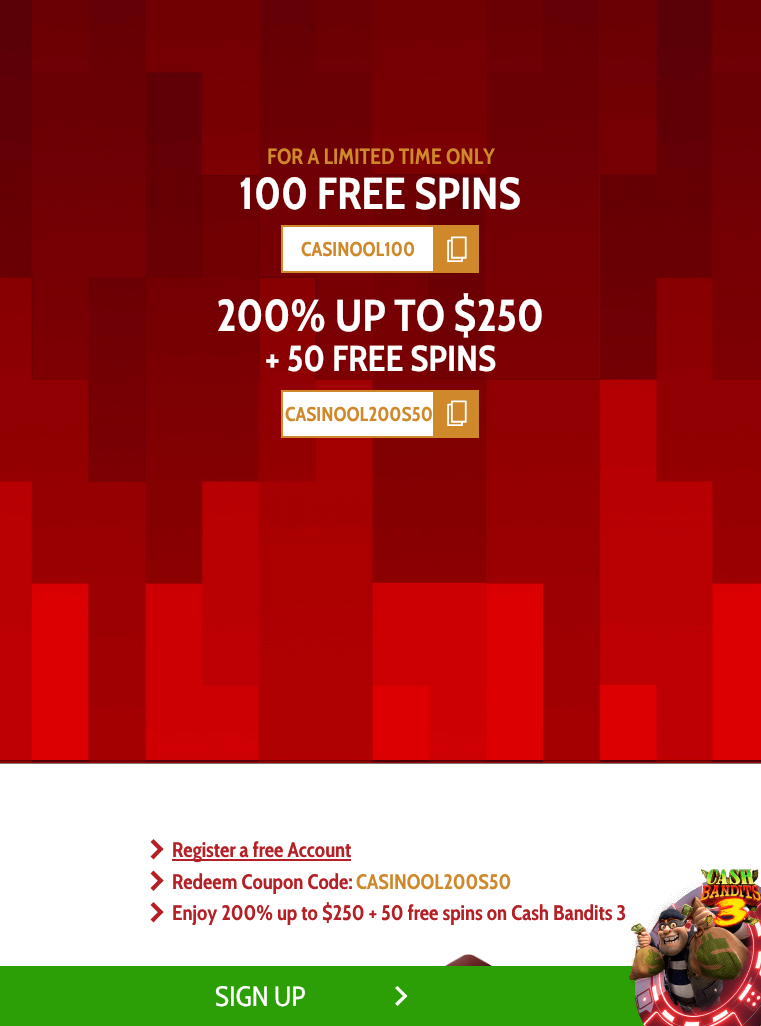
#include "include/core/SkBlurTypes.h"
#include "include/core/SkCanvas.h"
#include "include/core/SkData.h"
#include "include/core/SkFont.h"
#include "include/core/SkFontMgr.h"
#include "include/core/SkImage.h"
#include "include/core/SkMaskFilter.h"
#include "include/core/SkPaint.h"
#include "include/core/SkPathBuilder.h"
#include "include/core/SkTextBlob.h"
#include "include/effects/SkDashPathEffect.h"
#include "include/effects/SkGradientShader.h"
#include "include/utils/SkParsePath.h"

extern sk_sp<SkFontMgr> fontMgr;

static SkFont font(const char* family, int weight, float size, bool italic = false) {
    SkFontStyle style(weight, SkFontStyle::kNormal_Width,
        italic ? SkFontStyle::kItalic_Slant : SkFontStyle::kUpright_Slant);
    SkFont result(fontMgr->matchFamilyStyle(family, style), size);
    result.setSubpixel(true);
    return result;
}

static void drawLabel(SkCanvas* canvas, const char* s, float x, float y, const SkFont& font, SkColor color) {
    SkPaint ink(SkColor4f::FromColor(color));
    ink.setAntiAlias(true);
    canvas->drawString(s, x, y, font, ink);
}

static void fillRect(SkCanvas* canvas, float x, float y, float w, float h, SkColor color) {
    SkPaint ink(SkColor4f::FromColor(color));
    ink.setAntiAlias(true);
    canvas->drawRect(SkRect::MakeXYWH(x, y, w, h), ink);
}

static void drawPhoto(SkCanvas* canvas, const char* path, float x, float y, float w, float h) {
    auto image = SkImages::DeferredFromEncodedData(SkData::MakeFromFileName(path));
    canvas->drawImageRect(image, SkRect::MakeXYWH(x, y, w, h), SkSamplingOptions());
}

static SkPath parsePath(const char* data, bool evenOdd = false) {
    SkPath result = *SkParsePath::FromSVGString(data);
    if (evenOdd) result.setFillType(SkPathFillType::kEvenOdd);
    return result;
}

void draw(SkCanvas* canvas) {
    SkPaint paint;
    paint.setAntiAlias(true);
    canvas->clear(0xFFFFFFFF);
    drawPhoto(canvas, "assets/img1.png", 0, 0, 761, 764);
    SkFont font1 = font("Cabin Condensed", 700, 22);
    drawLabel(canvas, "FOR A LIMITED TIME ONLY", 267, 164, font1, 0xFFCF882A);
    SkFont font2 = font("Cabin Condensed", 700, 44.75f);
    drawLabel(canvas, "100 FREE SPINS", 239, 209, font2, 0xFFFFFFFF);
    fillRect(canvas, 435, 225, 44, 48, 0xFFCF882A);
    paint.setColor(0xFFFFFFFF);
    canvas->drawRect(SkRect::MakeXYWH(282, 226, 152, 46), paint);
    paint.setStroke(true);
    paint.setStrokeWidth(2);
    paint.setColor(0xFFCF882A);
    canvas->drawRect(SkRect::MakeXYWH(282, 226, 152, 46), paint);
    SkFont font3 = font("Cabin Condensed", 700, 20);
    drawLabel(canvas, "CASINOOL100", 301, 256, font3, 0xFFCF882A);
    drawPhoto(canvas, "assets/img2.png", 447, 236, 20, 26);
    drawLabel(canvas, "200% UP TO $250", 216, 331, font2, 0xFFFFFFFF);
    SkFont font4 = font("Cabin Condensed", 700, 36);
    drawLabel(canvas, "+ 50 FREE SPINS", 265, 371, font4, 0xFFFFFFFF);
    fillRect(canvas, 435, 390, 44, 48, 0xFFCF882A);
    paint.setStroke(false);
    paint.setColor(0xFFFFFFFF);
    canvas->drawRect(SkRect::MakeXYWH(282, 391, 152, 46), paint);
    paint.setStroke(true);
    paint.setColor(0xFFCF882A);
    canvas->drawRect(SkRect::MakeXYWH(282, 391, 152, 46), paint);
    drawLabel(canvas, "CASINOOL200S50", 285, 421, font3, 0xFFCF882A);
    drawPhoto(canvas, "assets/img2.png", 447, 400, 20, 26);
    paint.setStroke(false);
    paint.setColor(0xFFB42025);
    canvas->drawPath(parsePath("M153.5 839L163.5 849L160.5 852L150.5 842Z"), paint);
    canvas->drawPath(parsePath("M160.5 846.5L163.5 849L153.5 859.5L150.5 856.5Z"), paint);
    fillRect(canvas, 172, 859, 179, 2, 0xFFB42025);
    SkFont font5 = font("Cabin Condensed", 700, 21);
    drawLabel(canvas, "Register a free Account", 172, 857, font5, 0xFFB42025);
    canvas->drawPath(parsePath("M153.5 870.5L163.5 880.5L160.5 883.5L150.5 873.5Z"), paint);
    canvas->drawPath(parsePath("M160.5 878L163.5 880.5L153.5 891L150.5 888Z"), paint);
    drawLabel(canvas, "Redeem Coupon Code:", 172, 889, font5, 0xFFB42025);
    drawLabel(canvas, "CASINOOL200S50", 356, 889, font5, 0xFFCF882A);
    canvas->drawPath(parsePath("M153.5 902L163.5 912L160.5 915L150.5 905Z"), paint);
    canvas->drawPath(parsePath("M160.5 909.5L163.5 912L153.5 922.5L150.5 919.5Z"), paint);
    drawLabel(canvas, "Enjoy 200% up to $250 + 50 free spins on Cash Bandits 3", 172, 920, font5, 0xFFB42025);
    drawPhoto(canvas, "assets/img3.png", 444, 954, 49, 12);
    fillRect(canvas, 0, 966, 761, 60, 0xFF2D9F06);
    paint.setColor(0xFFFFFFFF);
    canvas->drawPath(parsePath("M397.5 986L395 988L403 996L395 1003.5L397.5 1006L407.5 996Z"), paint);
    SkFont font6 = font("Cabin Condensed", 400, 28);
    drawLabel(canvas, "SIGN UP", 215, 1006, font6, 0xFFFFFFFF);
    drawPhoto(canvas, "assets/img4.png", 629, 869, 132, 157);
}
